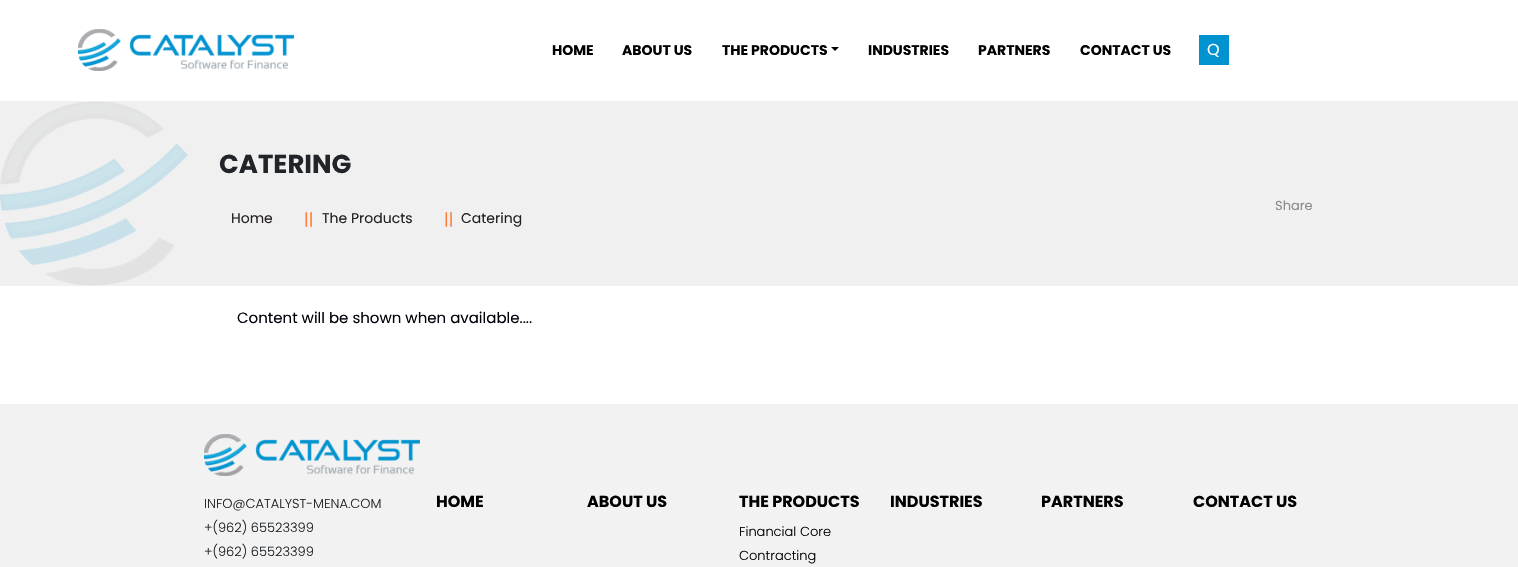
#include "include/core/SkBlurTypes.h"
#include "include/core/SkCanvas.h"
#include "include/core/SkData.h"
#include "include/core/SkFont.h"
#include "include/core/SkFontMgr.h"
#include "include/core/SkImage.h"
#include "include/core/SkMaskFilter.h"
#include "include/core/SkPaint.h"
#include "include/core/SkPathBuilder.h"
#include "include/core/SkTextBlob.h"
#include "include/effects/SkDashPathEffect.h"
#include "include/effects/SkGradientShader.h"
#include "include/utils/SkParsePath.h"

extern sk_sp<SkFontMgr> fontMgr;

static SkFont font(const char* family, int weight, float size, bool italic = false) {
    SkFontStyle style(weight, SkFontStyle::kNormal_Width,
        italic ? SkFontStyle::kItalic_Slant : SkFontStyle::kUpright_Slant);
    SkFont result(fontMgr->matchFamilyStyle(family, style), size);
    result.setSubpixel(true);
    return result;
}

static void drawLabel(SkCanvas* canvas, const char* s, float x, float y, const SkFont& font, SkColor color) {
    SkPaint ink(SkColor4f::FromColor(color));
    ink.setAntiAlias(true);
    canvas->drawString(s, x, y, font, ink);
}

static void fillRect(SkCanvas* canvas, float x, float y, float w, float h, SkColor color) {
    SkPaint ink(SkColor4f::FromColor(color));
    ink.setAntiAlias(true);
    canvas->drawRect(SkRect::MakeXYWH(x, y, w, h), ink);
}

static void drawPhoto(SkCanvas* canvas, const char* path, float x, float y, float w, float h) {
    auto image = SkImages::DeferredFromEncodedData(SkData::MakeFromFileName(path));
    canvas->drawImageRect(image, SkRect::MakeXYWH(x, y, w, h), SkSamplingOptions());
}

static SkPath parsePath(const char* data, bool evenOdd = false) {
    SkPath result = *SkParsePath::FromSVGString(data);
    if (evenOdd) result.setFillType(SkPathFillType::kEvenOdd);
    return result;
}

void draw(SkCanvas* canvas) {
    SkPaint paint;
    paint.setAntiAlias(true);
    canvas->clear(0xFFFFFFFF);
    drawPhoto(canvas, "assets/img1.png", 78, 29, 216, 42);
    SkFont font1 = font("Poppins", 700, 14);
    drawLabel(canvas, "HOME", 552, 55, font1, 0xFF000000);
    drawLabel(canvas, "ABOUT US", 622, 55, font1, 0xFF000000);
    drawLabel(canvas, "THE PRODUCTS", 722, 55, font1, 0xFF000000);
    paint.setColor(0xFF000000);
    canvas->drawPath(parsePath("M831 47H839L835 51Z"), paint);
    drawLabel(canvas, "INDUSTRIES", 868, 55, font1, 0xFF000000);
    drawLabel(canvas, "PARTNERS", 978, 55, font1, 0xFF000000);
    drawLabel(canvas, "CONTACT US", 1080, 55, font1, 0xFF000000);
    fillRect(canvas, 1199, 35, 30, 30, 0xFF0093D0);
    SkFont font2 = font("Poppins", 400, 16);
    drawLabel(canvas, "Q", 1207, 55, font2, 0xFFFFFFFF);
    fillRect(canvas, 0, 101, 1518, 185, 0xFFF0F0F0);
    drawPhoto(canvas, "assets/img2.png", 0, 101, 188, 185);
    SkFont font3 = font("Poppins", 700, 26);
    drawLabel(canvas, "CATERING", 219, 173, font3, 0xFF212529);
    SkFont font4 = font("Poppins", 400, 13);
    drawLabel(canvas, "Share", 1275, 210, font4, 0xFF8A8A8A);
    SkFont font5 = font("Poppins", 400, 14);
    drawLabel(canvas, "Home", 231, 223, font5, 0xFF231F20);
    drawLabel(canvas, "||", 304, 225, font2, 0xFFFA7F39);
    drawLabel(canvas, "The Products", 322, 223, font5, 0xFF231F20);
    drawLabel(canvas, "||", 444, 225, font2, 0xFFFA7F39);
    drawLabel(canvas, "Catering", 461, 223, font5, 0xFF231F20);
    SkFont font6 = font("Poppins", 400, 15);
    drawLabel(canvas, "Content will be shown when available....", 237, 323, font6, 0xFF00000A);
    fillRect(canvas, 0, 404, 1518, 163, 0xFFF2F2F2);
    drawPhoto(canvas, "assets/img3.png", 204, 434, 216, 42);
    SkFont font7 = font("Poppins", 300, 13);
    drawLabel(canvas, "INFO@CATALYST-MENA.COM", 204, 508, font7, 0xFF212529);
    drawLabel(canvas, "+(962) 65523399", 204, 532, font7, 0xFF212529);
    drawLabel(canvas, "+(962) 65523399", 204, 556, font7, 0xFF212529);
    SkFont font8 = font("Poppins", 700, 16);
    drawLabel(canvas, "HOME", 436, 507, font8, 0xFF000000);
    drawLabel(canvas, "ABOUT US", 587, 507, font8, 0xFF000000);
    drawLabel(canvas, "THE PRODUCTS", 739, 507, font8, 0xFF000000);
    drawLabel(canvas, "Financial Core", 739, 536, font7, 0xFF000000);
    drawLabel(canvas, "Contracting", 739, 560, font7, 0xFF000000);
    drawLabel(canvas, "INDUSTRIES", 890, 507, font8, 0xFF000000);
    drawLabel(canvas, "PARTNERS", 1041, 507, font8, 0xFF000000);
    drawLabel(canvas, "CONTACT US", 1193, 507, font8, 0xFF000000);
}
